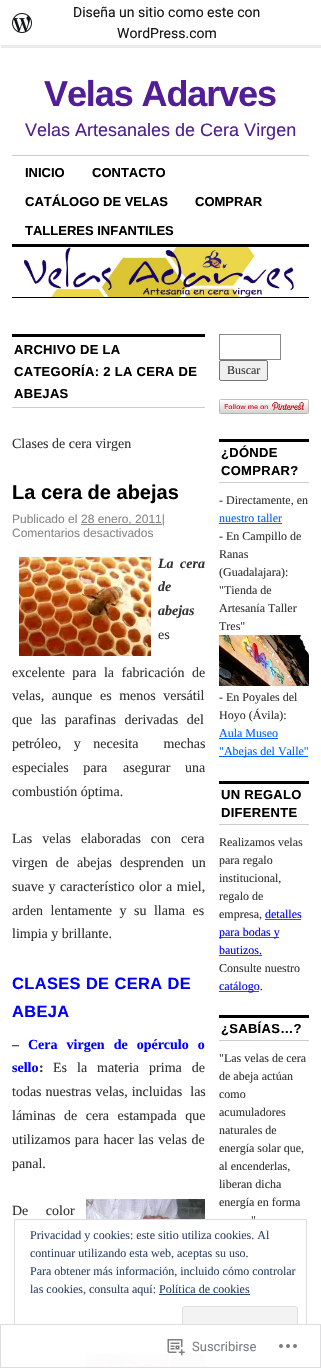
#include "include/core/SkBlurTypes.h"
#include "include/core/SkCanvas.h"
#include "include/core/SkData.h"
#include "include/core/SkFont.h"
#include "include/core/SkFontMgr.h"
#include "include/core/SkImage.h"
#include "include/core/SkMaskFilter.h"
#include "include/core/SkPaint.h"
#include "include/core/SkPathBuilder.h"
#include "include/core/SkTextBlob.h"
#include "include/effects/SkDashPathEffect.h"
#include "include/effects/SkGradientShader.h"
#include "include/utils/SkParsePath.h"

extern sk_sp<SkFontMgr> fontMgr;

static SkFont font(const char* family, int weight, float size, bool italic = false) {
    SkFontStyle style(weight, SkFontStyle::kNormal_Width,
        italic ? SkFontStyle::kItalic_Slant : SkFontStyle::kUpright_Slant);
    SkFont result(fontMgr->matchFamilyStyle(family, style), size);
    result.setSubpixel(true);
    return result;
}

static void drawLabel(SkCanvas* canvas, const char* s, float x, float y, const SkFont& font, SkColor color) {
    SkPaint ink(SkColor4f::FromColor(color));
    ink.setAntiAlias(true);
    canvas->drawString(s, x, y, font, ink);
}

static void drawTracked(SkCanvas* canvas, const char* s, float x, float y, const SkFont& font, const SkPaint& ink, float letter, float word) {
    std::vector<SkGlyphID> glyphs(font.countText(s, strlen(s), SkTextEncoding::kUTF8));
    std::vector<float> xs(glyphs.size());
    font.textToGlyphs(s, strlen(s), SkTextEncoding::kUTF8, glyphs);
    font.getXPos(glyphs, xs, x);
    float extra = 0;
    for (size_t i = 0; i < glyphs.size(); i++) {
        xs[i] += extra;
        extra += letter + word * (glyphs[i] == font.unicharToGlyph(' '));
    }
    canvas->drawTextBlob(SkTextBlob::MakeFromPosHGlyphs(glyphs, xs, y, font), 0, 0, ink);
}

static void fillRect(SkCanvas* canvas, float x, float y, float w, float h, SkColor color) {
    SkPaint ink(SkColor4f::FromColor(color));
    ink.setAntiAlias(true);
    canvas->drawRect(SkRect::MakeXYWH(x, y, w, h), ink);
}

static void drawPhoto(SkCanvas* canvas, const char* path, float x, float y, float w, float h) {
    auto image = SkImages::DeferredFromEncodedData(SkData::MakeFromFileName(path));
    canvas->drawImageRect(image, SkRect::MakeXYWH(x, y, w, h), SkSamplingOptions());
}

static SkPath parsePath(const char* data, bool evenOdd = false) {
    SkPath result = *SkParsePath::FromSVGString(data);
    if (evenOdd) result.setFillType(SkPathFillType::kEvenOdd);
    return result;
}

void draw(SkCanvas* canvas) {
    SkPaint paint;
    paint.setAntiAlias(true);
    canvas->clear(0xFFFFFFFF);
    paint.setColor(0x14000000);
    canvas->drawPath(parsePath("M1 45V48H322V3H321V45Z"), paint);
    drawPhoto(canvas, "assets/img1.png", 12, 13, 20, 20);
    SkFont font1 = font("Roboto", 400, 14);
    drawLabel(canvas, "Diseña un sitio como este con", 73, 17, font1, 0xFF171717);
    drawLabel(canvas, "WordPress.com", 117, 38, font1, 0xFF171717);
    SkFont font2 = font("Liberation Sans", 700, 36);
    paint.setColor(0xFF511E97);
    drawTracked(canvas, "Velas Adarves", 44, 106, font2, paint, -1.1f, 0);
    SkFont font3 = font("Liberation Sans", 400, 18);
    drawLabel(canvas, "Velas Artesanales de Cera Virgen", 25, 136, font3, 0xFF511E97);
    fillRect(canvas, 12, 155, 297, 1, 0xFFCCCCCC);
    SkFont font4 = font("Liberation Sans", 700, 13);
    drawLabel(canvas, "INICIO", 25, 177, font4, 0xFF000000);
    drawLabel(canvas, "CONTACTO", 92, 177, font4, 0xFF000000);
    drawLabel(canvas, "CATÁLOGO DE VELAS", 25, 206, font4, 0xFF000000);
    drawLabel(canvas, "COMPRAR", 195, 206, font4, 0xFF000000);
    drawLabel(canvas, "TALLERES INFANTILES", 25, 235, font4, 0xFF000000);
    fillRect(canvas, 12, 244, 297, 3, 0xFF000000);
    drawPhoto(canvas, "assets/img2.png", 22, 247, 273, 50);
    fillRect(canvas, 12, 297, 297, 1, 0xFF000000);
    fillRect(canvas, 12, 334, 193, 3, 0xFF000000);
    fillRect(canvas, 12, 407, 193, 1, 0xFFCCCCCC);
    paint.setColor(0xFF000000);
    drawTracked(canvas, "ARCHIVO DE LA", 14, 354, font4, paint, 0.3f, 0);
    drawTracked(canvas, "CATEGORÍA: 2 LA CERA DE", 14, 376, font4, paint, 0.3f, 0);
    drawTracked(canvas, "ABEJAS", 14, 398, font4, paint, 0.3f, 0);
    SkFont font5 = font("Liberation Serif", 400, 14);
    drawLabel(canvas, "Clases de cera virgen", 12, 448, font5, 0xFF333333);
    SkFont font6 = font("Liberation Sans", 700, 20);
    drawLabel(canvas, "La cera de abejas", 12, 499, font6, 0xFF000000);
    SkFont font7 = font("Liberation Sans", 400, 12);
    drawLabel(canvas, "Publicado el", 12, 523, font7, 0xFF888888);
    fillRect(canvas, 81, 524, 81, 1, 0xFF888888);
    drawLabel(canvas, "28 enero, 2011|", 81, 523, font7, 0xFF888888);
    drawLabel(canvas, "Comentarios desactivados", 12, 537, font7, 0xFF888888);
    drawPhoto(canvas, "assets/img3.png", 19, 557, 132, 99);
    SkFont font8 = font("Liberation Serif", 700, 14, true);
    paint.setColor(0xFF333333);
    drawTracked(canvas, "La cera", 158, 568, font8, paint, 0, 3);
    drawLabel(canvas, "de", 158, 591, font8, 0xFF333333);
    drawLabel(canvas, "abejas", 158, 615, font8, 0xFF333333);
    drawLabel(canvas, "es", 158, 639, font5, 0xFF333333);
    drawTracked(canvas, "excelente para la fabricación de", 12, 677, font5, paint, 0, 4);
    drawTracked(canvas, "velas, aunque", 12, 700, font5, paint, 0, 4);
    drawTracked(canvas, "es menos versátil", 100, 700, font5, paint, 0, 4);
    drawTracked(canvas, "que las parafinas derivadas del", 12, 724, font5, paint, 0, 5);
    drawTracked(canvas, "petróleo, y necesita  mechas", 12, 748, font5, paint, 0, 9);
    drawTracked(canvas, "especiales para", 12, 772, font5, paint, 0, 11);
    drawTracked(canvas, "asegurar una", 123, 772, font5, paint, 0, 11);
    drawLabel(canvas, "combustión óptima.", 12, 796, font5, 0xFF333333);
    drawTracked(canvas, "Las velas elaboradas con cera", 12, 843, font5, paint, 0, 6.5f);
    drawTracked(canvas, "virgen de abejas desprenden un", 12, 867, font5, paint, 0, 4.5f);
    drawTracked(canvas, "suave y", 12, 891, font5, paint, 0, 1);
    drawLabel(canvas, "característico", 60, 891, font5, 0xFF333333);
    drawTracked(canvas, "olor a miel,", 139, 891, font5, paint, 0, 1);
    drawTracked(canvas, "arden lentamente y su llama es", 12, 915, font5, paint, 0, 4);
    drawLabel(canvas, "limpia y brillante.", 12, 938, font5, 0xFF333333);
    SkFont font9 = font("Liberation Sans", 700, 16.4f);
    paint.setColor(0xFF0000FF);
    drawTracked(canvas, "CLASES DE CERA DE", 12, 989, font9, paint, 0.4f, 0);
    drawTracked(canvas, "ABEJA", 12, 1017, font9, paint, 0.4f, 0);
    SkFont font10 = font("Liberation Serif", 700, 14);
    drawLabel(canvas, "–", 12, 1049, font10, 0xFF333333);
    drawTracked(canvas, "Cera virgen de opérculo o", 28, 1049, font10, paint, 0, 5.5f);
    drawLabel(canvas, "sello", 12, 1072, font10, 0xFF0000FF);
    drawLabel(canvas, ":", 39, 1072, font10, 0xFF333333);
    paint.setColor(0xFF333333);
    drawTracked(canvas, "Es la materia prima de", 53, 1072, font5, paint, 0, 6.5f);
    drawTracked(canvas, "todas nuestras velas, incluidas  las", 12, 1096, font5, paint, 0, 0.5f);
    drawTracked(canvas, "láminas de cera estampada que", 12, 1120, font5, paint, 0, 5);
    drawTracked(canvas, "utilizamos para hacer las velas de", 12, 1144, font5, paint, 0, 1);
    drawLabel(canvas, "panal.", 12, 1168, font5, 0xFF333333);
    drawTracked(canvas, "De color", 12, 1215, font5, paint, 0, 14);
    drawPhoto(canvas, "assets/img4.png", 86, 1199, 119, 169);
    paint.setStroke(true);
    paint.setStrokeWidth(1);
    paint.setColor(0xFF888888);
    canvas->drawRect(SkRect::MakeXYWH(219.5f, 334.5f, 61, 25), paint);
    paint.setStroke(false);
    paint.setColor(0xFFEFEFEF);
    canvas->drawRoundRect(SkRect::MakeXYWH(219.5f, 360.5f, 48, 20), 1.5f, 1.5f, paint);
    paint.setStroke(true);
    paint.setColor(0xFF767676);
    canvas->drawRoundRect(SkRect::MakeXYWH(219.5f, 360.5f, 48, 20), 1.5f, 1.5f, paint);
    SkFont font11 = font("Liberation Serif", 400, 12);
    drawLabel(canvas, "Buscar", 227, 374, font11, 0xFF333333);
    drawPhoto(canvas, "assets/img5.png", 219, 399, 90, 15);
    fillRect(canvas, 219, 439, 90, 3, 0xFF000000);
    fillRect(canvas, 219, 482, 90, 1, 0xFFCCCCCC);
    paint.setStroke(false);
    paint.setColor(0xFF000000);
    drawTracked(canvas, "¿DÓNDE", 221, 457, font4, paint, 0.3f, 0);
    drawTracked(canvas, "COMPRAR?", 221, 475, font4, paint, 0.3f, 0);
    drawLabel(canvas, "- Directamente, en", 219, 504, font11, 0xFF333333);
    drawLabel(canvas, "nuestro taller", 219, 522, font11, 0xFF0060FF);
    fillRect(canvas, 219, 523, 63, 1, 0xFF0060FF);
    drawLabel(canvas, "- En Campillo de", 219, 540, font11, 0xFF333333);
    drawLabel(canvas, "Ranas", 219, 558, font11, 0xFF333333);
    drawLabel(canvas, "(Guadalajara):", 219, 576, font11, 0xFF333333);
    drawLabel(canvas, "\"Tienda de", 219, 594, font11, 0xFF333333);
    drawLabel(canvas, "Artesanía Taller", 219, 612, font11, 0xFF333333);
    drawLabel(canvas, "Tres\"", 219, 630, font11, 0xFF333333);
    drawPhoto(canvas, "assets/img6.png", 219, 635, 90, 51);
    drawLabel(canvas, "- En Poyales del", 219, 701, font11, 0xFF333333);
    drawLabel(canvas, "Hoyo (Ávila):", 219, 719, font11, 0xFF333333);
    drawLabel(canvas, "Aula Museo", 219, 737, font11, 0xFF0060FF);
    fillRect(canvas, 219, 738, 59, 1, 0xFF0060FF);
    fillRect(canvas, 219, 756, 89, 1, 0xFF0060FF);
    drawLabel(canvas, "\"Abejas del Valle\"", 219, 755, font11, 0xFF0060FF);
    fillRect(canvas, 219, 781, 90, 3, 0xFF000000);
    fillRect(canvas, 219, 824, 90, 1, 0xFFCCCCCC);
    drawTracked(canvas, "UN REGALO", 221, 799, font4, paint, 0.3f, 0);
    drawTracked(canvas, "DIFERENTE", 221, 817, font4, paint, 0.3f, 0);
    drawLabel(canvas, "Realizamos velas", 219, 846, font11, 0xFF333333);
    drawLabel(canvas, "para regalo", 219, 864, font11, 0xFF333333);
    drawLabel(canvas, "institucional,", 219, 882, font11, 0xFF333333);
    drawLabel(canvas, "regalo de", 219, 900, font11, 0xFF333333);
    drawLabel(canvas, "empresa,", 219, 918, font11, 0xFF333333);
    drawLabel(canvas, "detalles", 265, 918, font11, 0xFF0000FF);
    fillRect(canvas, 265, 919, 36, 1, 0xFF0060FF);
    fillRect(canvas, 219, 937, 60, 1, 0xFF0060FF);
    drawLabel(canvas, "para bodas y", 219, 936, font11, 0xFF0000FF);
    drawLabel(canvas, "bautizos.", 219, 954, font11, 0xFF0000FF);
    fillRect(canvas, 219, 955, 43, 1, 0xFF0060FF);
    drawLabel(canvas, "Consulte nuestro", 219, 972, font11, 0xFF333333);
    fillRect(canvas, 219, 991, 40, 1, 0xFF0060FF);
    drawLabel(canvas, "catálogo.", 219, 990, font11, 0xFF0000FF);
    fillRect(canvas, 219, 1015, 90, 3, 0xFF000000);
    fillRect(canvas, 219, 1040, 90, 1, 0xFFCCCCCC);
    drawTracked(canvas, "¿SABÍAS…?", 221, 1033, font4, paint, 0.3f, 0);
    drawLabel(canvas, "\"Las velas de cera", 219, 1062, font11, 0xFF333333);
    drawLabel(canvas, "de abeja actúan", 219, 1080, font11, 0xFF333333);
    drawLabel(canvas, "como", 219, 1098, font11, 0xFF333333);
    drawLabel(canvas, "acumuladores", 219, 1116, font11, 0xFF333333);
    drawLabel(canvas, "naturales de", 219, 1134, font11, 0xFF333333);
    drawLabel(canvas, "energía solar que,", 219, 1152, font11, 0xFF333333);
    drawLabel(canvas, "al encenderlas,", 219, 1170, font11, 0xFF333333);
    drawLabel(canvas, "liberan dicha", 219, 1188, font11, 0xFF333333);
    drawLabel(canvas, "energía en forma", 219, 1206, font11, 0xFF333333);
    drawLabel(canvas, "\"", 251, 1224, font11, 0xFF333333);
    fillRect(canvas, 86, 1220, 119, 133, 0xFFFFFFFF);
    paint.setStroke(true);
    paint.setColor(0xFFDEDEDE);
    canvas->drawRect(SkRect::MakeXYWH(14.5f, 1219.5f, 292, 134), paint);
    drawLabel(canvas, "Privacidad y cookies: este sitio utiliza cookies. Al", 30, 1239, font11, 0xFF2E4467);
    drawLabel(canvas, "continuar utilizando esta web, aceptas su uso.", 30, 1257, font11, 0xFF2E4467);
    drawLabel(canvas, "Para obtener más información, incluido cómo controlar", 30, 1275, font11, 0xFF2E4467);
    drawLabel(canvas, "las cookies, consulta aquí: Política de cookies", 30, 1293, font11, 0xFF2E4467);
    fillRect(canvas, 159, 1294, 91, 1, 0xFF2E4467);
    paint.setStroke(false);
    paint.setColor(0xFFF3F3F3);
    canvas->drawRoundRect(SkRect::MakeXYWH(182.5f, 1306.5f, 115, 38), 2.5f, 2.5f, paint);
    paint.setStroke(true);
    paint.setColor(0xFFDEDEDE);
    canvas->drawRoundRect(SkRect::MakeXYWH(182.5f, 1306.5f, 115, 38), 2.5f, 2.5f, paint);
    fillRect(canvas, 14, 1324, 293, 44, 0xFAFFFFFF);
    paint.setColor(0xFADCDCDE);
    canvas->drawRect(SkRect::MakeXYWH(0.5f, 1324.5f, 320, 43), paint);
    drawPhoto(canvas, "assets/img7.png", 167, 1339, 18, 17);
    SkFont font12 = font("Roboto", 400, 13);
    drawLabel(canvas, "Suscribirse", 192, 1351, font12, 0xFF7B7F84);
    drawPhoto(canvas, "assets/img8.png", 279, 1344, 18, 4);
}
